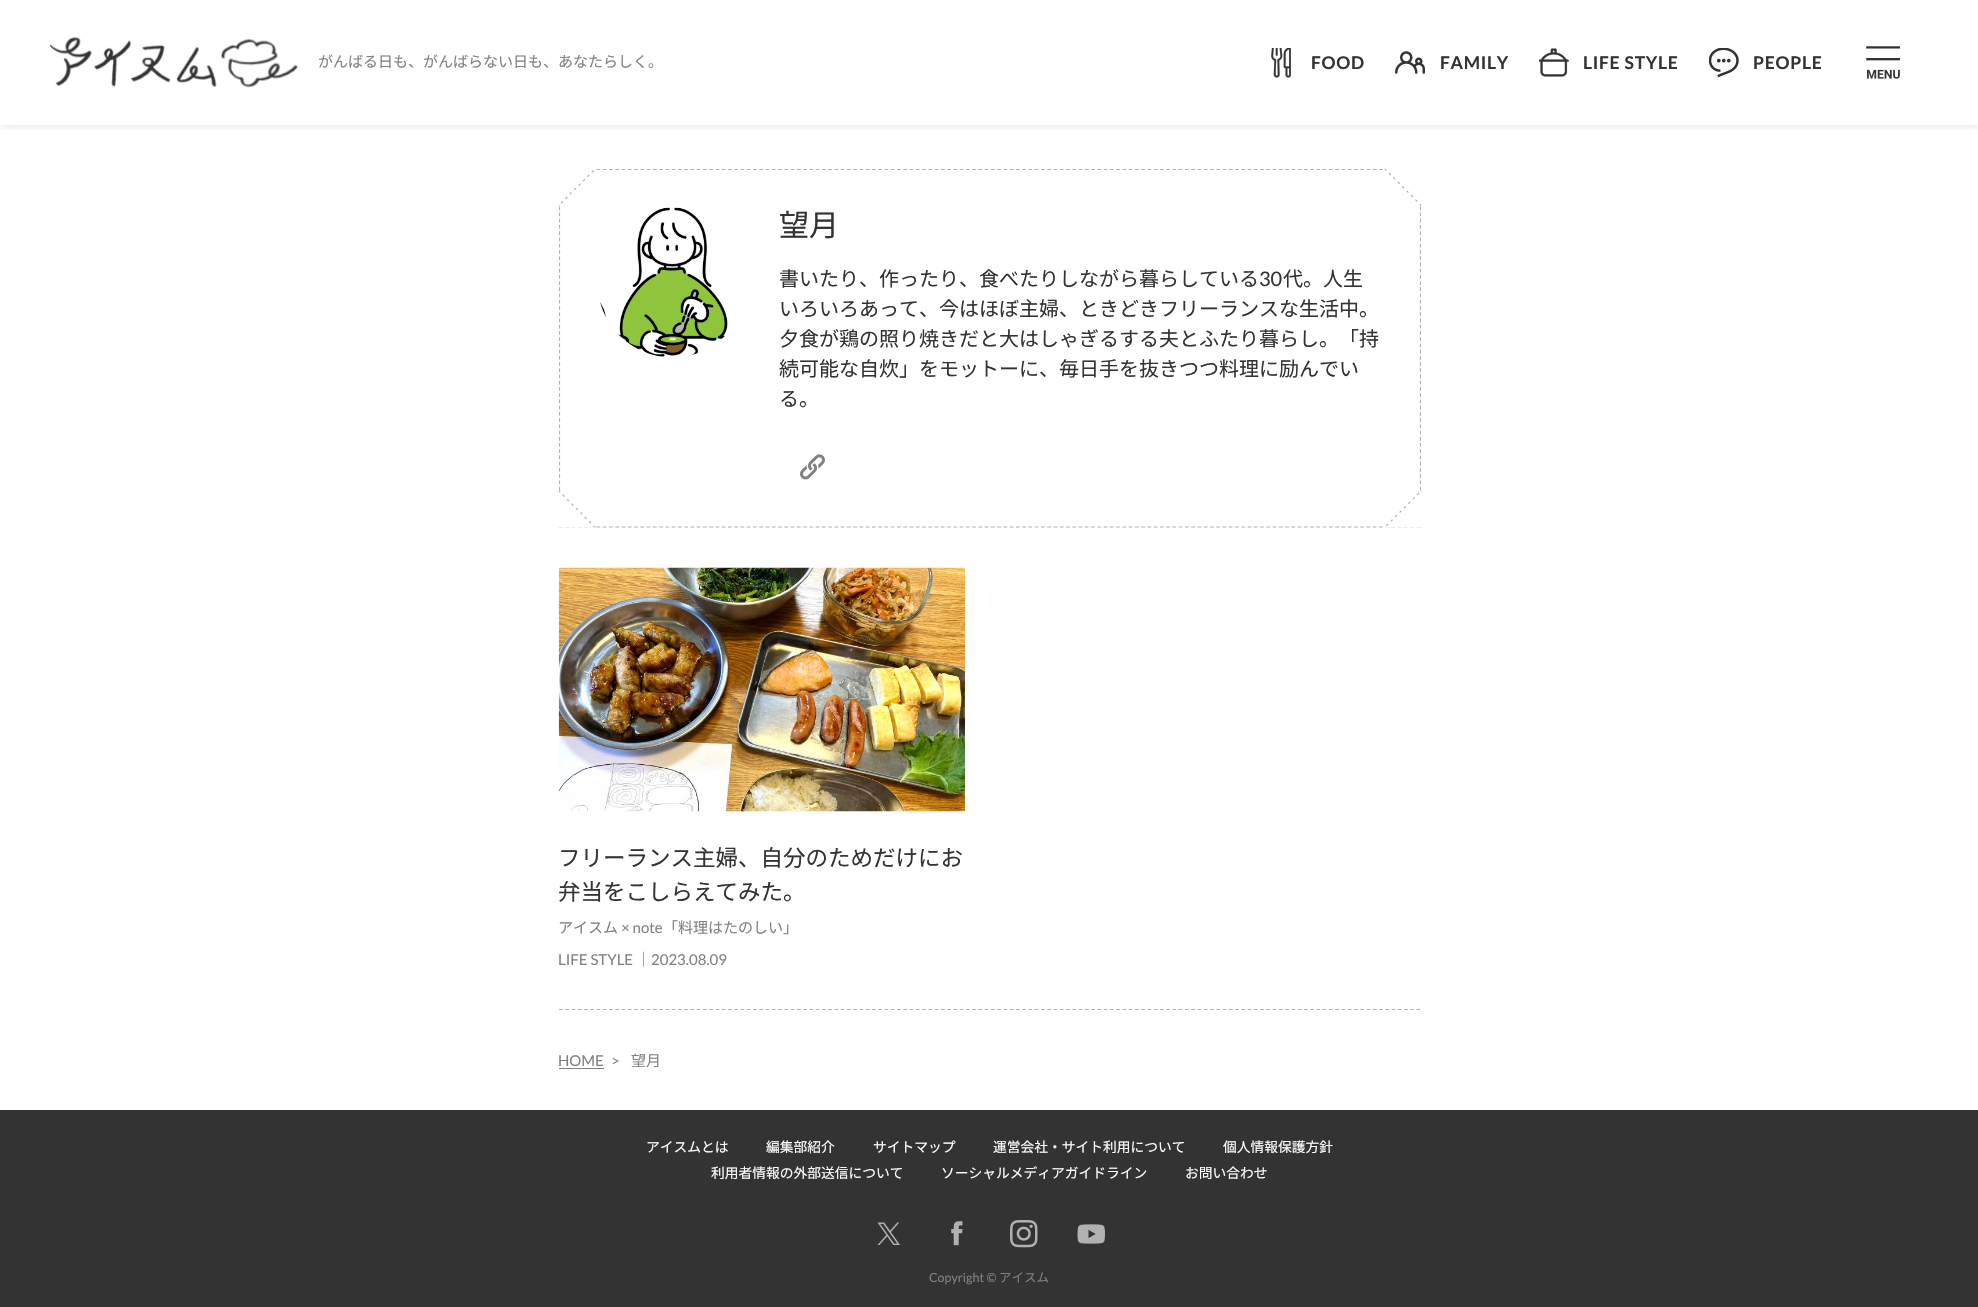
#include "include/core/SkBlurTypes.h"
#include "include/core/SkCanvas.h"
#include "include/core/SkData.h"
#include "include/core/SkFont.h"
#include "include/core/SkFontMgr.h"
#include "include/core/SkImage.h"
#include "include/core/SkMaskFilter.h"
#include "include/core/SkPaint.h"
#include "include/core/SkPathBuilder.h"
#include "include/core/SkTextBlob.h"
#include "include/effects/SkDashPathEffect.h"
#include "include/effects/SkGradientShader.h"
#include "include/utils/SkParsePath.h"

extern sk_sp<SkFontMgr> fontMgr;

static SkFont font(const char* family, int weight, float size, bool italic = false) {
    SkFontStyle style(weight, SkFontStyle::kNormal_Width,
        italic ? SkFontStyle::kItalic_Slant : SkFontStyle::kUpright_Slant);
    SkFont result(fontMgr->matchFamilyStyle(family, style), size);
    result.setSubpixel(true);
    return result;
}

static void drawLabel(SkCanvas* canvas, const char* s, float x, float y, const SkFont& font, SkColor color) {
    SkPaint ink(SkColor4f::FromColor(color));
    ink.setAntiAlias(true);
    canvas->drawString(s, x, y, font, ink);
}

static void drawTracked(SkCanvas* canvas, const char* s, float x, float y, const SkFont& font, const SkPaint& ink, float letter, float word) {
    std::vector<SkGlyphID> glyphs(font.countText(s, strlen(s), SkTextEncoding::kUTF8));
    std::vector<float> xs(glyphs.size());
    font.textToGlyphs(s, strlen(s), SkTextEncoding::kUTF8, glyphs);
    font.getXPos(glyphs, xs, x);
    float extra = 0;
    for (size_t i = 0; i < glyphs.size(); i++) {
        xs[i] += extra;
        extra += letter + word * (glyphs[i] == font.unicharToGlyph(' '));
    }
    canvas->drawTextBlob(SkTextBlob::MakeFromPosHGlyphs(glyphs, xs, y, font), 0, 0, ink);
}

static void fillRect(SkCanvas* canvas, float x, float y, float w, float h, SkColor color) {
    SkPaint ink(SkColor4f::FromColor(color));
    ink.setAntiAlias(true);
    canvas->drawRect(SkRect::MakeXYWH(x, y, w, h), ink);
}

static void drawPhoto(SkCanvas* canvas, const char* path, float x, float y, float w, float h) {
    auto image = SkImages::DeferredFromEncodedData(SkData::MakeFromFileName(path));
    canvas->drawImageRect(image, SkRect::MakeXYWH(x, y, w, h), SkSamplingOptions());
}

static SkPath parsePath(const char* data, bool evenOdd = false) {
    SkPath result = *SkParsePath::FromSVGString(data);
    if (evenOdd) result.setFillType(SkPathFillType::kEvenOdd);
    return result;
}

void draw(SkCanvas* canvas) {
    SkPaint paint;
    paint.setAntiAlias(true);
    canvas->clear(0xFFFFFFFF);
    canvas->save();
    canvas->clipRect(SkRect::MakeXYWH(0, 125, 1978, 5));
    paint.setColor(0x1F000000);
    paint.setMaskFilter(SkMaskFilter::MakeBlur(kNormal_SkBlurStyle, 5));
    canvas->drawRect(SkRect::MakeXYWH(0, 0, 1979, 125), paint);
    paint.setMaskFilter(nullptr);
    canvas->restore();
    drawPhoto(canvas, "assets/img1.png", 50, 37, 248, 51);
    SkFont font1 = font("Noto Sans CJK JP", 400, 15);
    drawLabel(canvas, "がんばる日も、がんばらない日も、あなたらしく。", 318, 67, font1, 0xFF818181);
    drawPhoto(canvas, "assets/img2.png", 1271, 48, 20, 30);
    SkFont font2 = font("Lato", 700, 17.5f);
    paint.setColor(0xFF333333);
    drawTracked(canvas, "FOOD", 1311, 69, font2, paint, 0.75f, 0);
    drawPhoto(canvas, "assets/img3.png", 1395, 51, 30, 23);
    drawTracked(canvas, "FAMILY", 1440, 69, font2, paint, 0.75f, 0);
    drawPhoto(canvas, "assets/img4.png", 1539, 48, 30, 29);
    drawTracked(canvas, "LIFE STYLE", 1583, 69, font2, paint, 0.75f, 0);
    drawPhoto(canvas, "assets/img5.png", 1709, 48, 30, 30);
    drawTracked(canvas, "PEOPLE", 1753, 69, font2, paint, 0.75f, 0);
    drawPhoto(canvas, "assets/img6.png", 1866, 46, 34, 33);
    canvas->save();
    canvas->clipRect(SkRect::MakeXYWH(559, 169, 862, 359));
    paint.setStroke(true);
    paint.setStrokeWidth(1.2f);
    paint.setColor(0xFFB1B1B1);
    paint.setPathEffect(SkDashPathEffect::Make({{3.75f, 2.51f}}, 0));
    canvas->drawPath(parsePath("M559 169.5H1421"), paint);
    paint.setPathEffect(nullptr);
    paint.setPathEffect(SkDashPathEffect::Make({{3.75f, 2.48f}}, 0));
    canvas->drawPath(parsePath("M1420.5 169V527.5"), paint);
    paint.setPathEffect(nullptr);
    canvas->restore();
    paint.setPathEffect(SkDashPathEffect::Make({{3.75f, 2.51f}}, 0));
    canvas->drawPath(parsePath("M559 527H1421"), paint);
    paint.setPathEffect(nullptr);
    canvas->save();
    canvas->clipRect(SkRect::MakeXYWH(559, 169, 862, 359));
    paint.setPathEffect(SkDashPathEffect::Make({{3.75f, 2.48f}}, 0));
    canvas->drawPath(parsePath("M559.5 169V527.5"), paint);
    paint.setPathEffect(nullptr);
    canvas->restore();
    drawPhoto(canvas, "assets/img7.png", 558, 169, 36, 37);
    drawPhoto(canvas, "assets/img8.png", 1384, 168, 38, 38);
    drawPhoto(canvas, "assets/img9.png", 600, 207, 128, 150);
    SkFont font3 = font("Noto Sans CJK JP", 400, 30);
    drawLabel(canvas, "望月", 779, 236, font3, 0xFF333333);
    SkFont font4 = font("Noto Sans CJK JP", 400, 20);
    drawLabel(canvas, "書いたり、作ったり、食べたりしながら暮らしている", 779, 286, font4, 0xFF333333);
    SkFont font5 = font("Lato", 400, 20);
    drawLabel(canvas, "30", 1259, 286, font5, 0xFF333333);
    drawLabel(canvas, "代。人生", 1283, 286, font4, 0xFF333333);
    drawLabel(canvas, "いろいろあって、今はほぼ主婦、ときどきフリーランスな生活中。", 779, 316, font4, 0xFF333333);
    drawLabel(canvas, "夕食が鶏の照り焼きだと大はしゃぎるする夫とふたり暮らし。「持", 779, 346, font4, 0xFF333333);
    drawLabel(canvas, "続可能な自炊」をモットーに、毎日手を抜きつつ料理に励んでい", 779, 376, font4, 0xFF333333);
    drawLabel(canvas, "る。", 779, 406, font4, 0xFF333333);
    drawPhoto(canvas, "assets/img10.png", 800, 454, 25, 26);
    drawPhoto(canvas, "assets/img11.png", 558, 490, 38, 38);
    drawPhoto(canvas, "assets/img12.png", 1385, 490, 37, 38);
    drawPhoto(canvas, "assets/img13.png", 558, 567, 407, 245);
    SkFont font6 = font("Noto Sans CJK JP", 400, 22.5f);
    drawLabel(canvas, "フリーランス主婦、自分のためだけにお", 558, 866, font6, 0xFF333333);
    drawLabel(canvas, "弁当をこしらえてみた。", 558, 900, font6, 0xFF333333);
    drawLabel(canvas, "アイスム", 558, 933, font1, 0xFF818181);
    SkFont font7 = font("Lato", 400, 15);
    drawLabel(canvas, "× note", 621, 933, font7, 0xFF818181);
    drawLabel(canvas, "「料理はたのしい」", 663, 933, font1, 0xFF818181);
    drawLabel(canvas, "LIFE STYLE", 558, 965, font7, 0xFF818181);
    drawLabel(canvas, "｜", 636, 965, font1, 0xFF818181);
    drawLabel(canvas, "2023.08.09", 651, 965, font7, 0xFF818181);
    paint.setPathEffect(SkDashPathEffect::Make({{3.75f, 2.51f}}, 0));
    canvas->drawPath(parsePath("M559 1009.5H1421"), paint);
    paint.setPathEffect(nullptr);
    drawLabel(canvas, "HOME", 558, 1066, font7, 0xFF818181);
    fillRect(canvas, 559, 1068, 45, 1, 0xFF818181);
    drawLabel(canvas, ">", 611, 1066, font7, 0xFF818181);
    drawLabel(canvas, "望月", 631, 1066, font1, 0xFF818181);
    fillRect(canvas, 0, 1110, 1978, 197, 0xFF333333);
    SkFont font8 = font("Noto Sans CJK JP", 400, 13.75f);
    drawLabel(canvas, "アイスムとは", 646, 1152, font8, 0xFFFFFFFF);
    drawLabel(canvas, "編集部紹介", 766, 1152, font8, 0xFFFFFFFF);
    drawLabel(canvas, "サイトマップ", 873, 1152, font8, 0xFFFFFFFF);
    drawLabel(canvas, "運営会社・サイト利用について", 993, 1152, font8, 0xFFFFFFFF);
    drawLabel(canvas, "個人情報保護方針", 1223, 1152, font8, 0xFFFFFFFF);
    drawLabel(canvas, "利用者情報の外部送信について", 711, 1178, font8, 0xFFFFFFFF);
    drawLabel(canvas, "ソーシャルメディアガイドライン", 941, 1178, font8, 0xFFFFFFFF);
    drawLabel(canvas, "お問い合わせ", 1185, 1178, font8, 0xFFFFFFFF);
    drawPhoto(canvas, "assets/img14.png", 877, 1222, 23, 23);
    drawPhoto(canvas, "assets/img15.png", 951, 1221, 12, 25);
    drawPhoto(canvas, "assets/img16.png", 1010, 1220, 28, 28);
    drawPhoto(canvas, "assets/img17.png", 1077, 1224, 28, 20);
    SkFont font9 = font("Lato", 400, 12.5f);
    drawLabel(canvas, "Copyright ©", 929, 1282, font9, 0xFF818181);
    SkFont font10 = font("Noto Sans CJK JP", 400, 12.5f);
    drawLabel(canvas, "アイスム", 999, 1282, font10, 0xFF818181);
}
